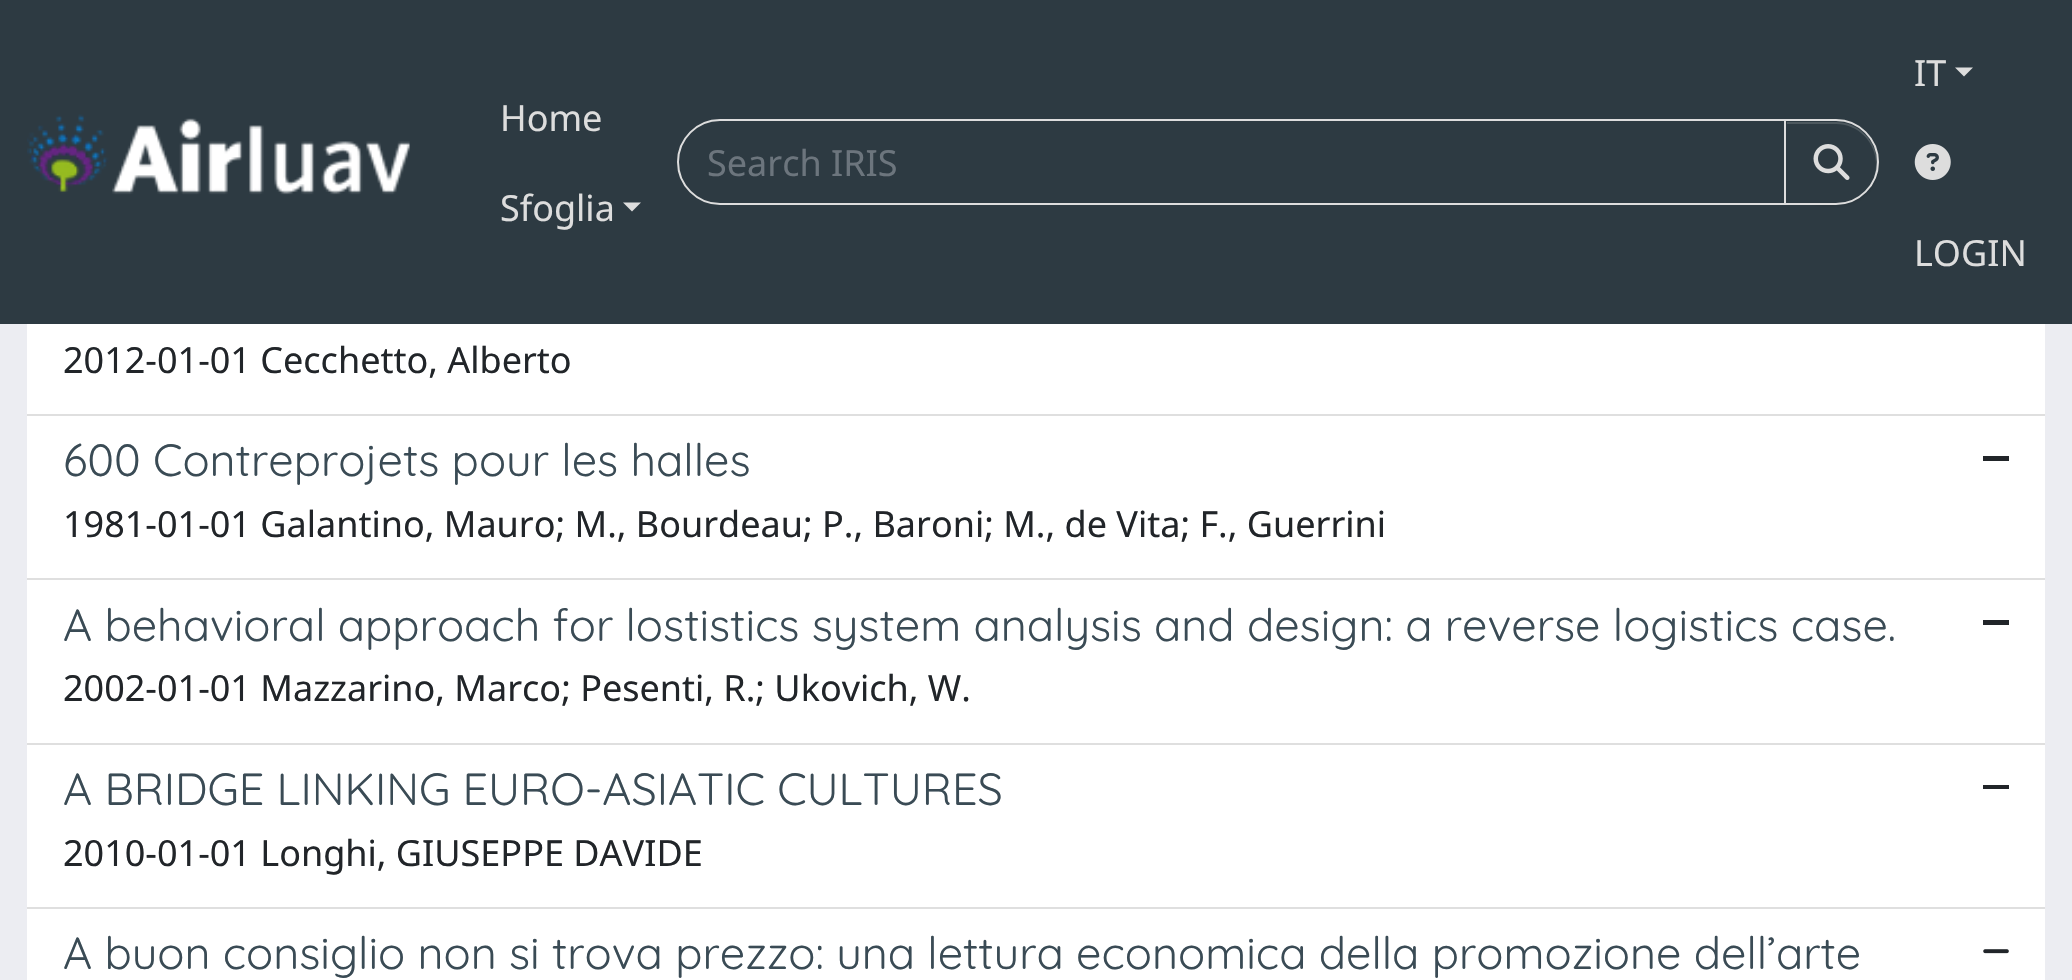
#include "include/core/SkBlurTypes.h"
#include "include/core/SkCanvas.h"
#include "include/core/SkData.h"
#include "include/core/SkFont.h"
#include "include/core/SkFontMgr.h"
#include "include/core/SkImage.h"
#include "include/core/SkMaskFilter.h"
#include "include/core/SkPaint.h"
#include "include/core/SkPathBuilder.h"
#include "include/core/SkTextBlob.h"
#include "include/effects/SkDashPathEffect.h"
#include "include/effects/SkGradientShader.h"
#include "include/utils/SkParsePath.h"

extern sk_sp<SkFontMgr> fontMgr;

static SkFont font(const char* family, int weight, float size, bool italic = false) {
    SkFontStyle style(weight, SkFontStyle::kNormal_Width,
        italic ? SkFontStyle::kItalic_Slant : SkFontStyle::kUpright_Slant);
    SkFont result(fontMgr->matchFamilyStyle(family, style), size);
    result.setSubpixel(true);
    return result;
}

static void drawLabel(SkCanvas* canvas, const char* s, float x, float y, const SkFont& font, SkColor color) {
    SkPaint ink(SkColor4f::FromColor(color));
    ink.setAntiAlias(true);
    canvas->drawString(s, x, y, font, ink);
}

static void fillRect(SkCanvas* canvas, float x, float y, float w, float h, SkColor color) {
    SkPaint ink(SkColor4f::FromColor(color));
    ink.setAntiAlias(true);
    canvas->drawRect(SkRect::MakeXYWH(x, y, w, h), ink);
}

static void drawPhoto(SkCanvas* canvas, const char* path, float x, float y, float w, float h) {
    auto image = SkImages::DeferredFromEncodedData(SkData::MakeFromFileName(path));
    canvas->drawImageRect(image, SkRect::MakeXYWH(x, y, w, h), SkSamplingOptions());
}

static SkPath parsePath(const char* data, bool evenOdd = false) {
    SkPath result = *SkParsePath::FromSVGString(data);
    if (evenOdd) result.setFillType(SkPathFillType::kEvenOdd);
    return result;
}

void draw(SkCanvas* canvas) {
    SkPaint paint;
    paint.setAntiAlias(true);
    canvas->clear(0xFFECEDF2);
    fillRect(canvas, 0, 0, 2072, 324, 0xFF2D3A42);
    drawPhoto(canvas, "assets/img1.png", 27, 114, 383, 81);
    SkFont font1 = font("Noto Sans", 400, 36);
    drawLabel(canvas, "Home", 500, 131, font1, 0xFFDDDDDD);
    drawLabel(canvas, "Sfoglia", 500, 221, font1, 0xFFDDDDDD);
    paint.setColor(0xFFDDDDDD);
    canvas->drawPath(parsePath("M623 202.5H641L632 211.5Z"), paint);
    paint.setStroke(true);
    paint.setStrokeWidth(2);
    canvas->drawPath(parsePath("M720 120H1786V204H720C697 204 678 185 678 162C678 139 697 120 720 120Z"), paint);
    drawLabel(canvas, "Search IRIS", 707, 176, font1, 0xFF6C757D);
    paint.setStroke(false);
    paint.setColor(0x12000000);
    paint.setMaskFilter(SkMaskFilter::MakeBlur(kNormal_SkBlurStyle, 1));
    canvas->drawRoundRect(SkRect::MakeXYWH(1784, 122, 95, 85), 42.5f, 42.5f, paint);
    paint.setMaskFilter(nullptr);
    paint.setColor(0xFF2D3A42);
    canvas->drawPath(parsePath("M1784 119H1836C1859.5 119 1879 138.5 1879 162C1879 185.5 1859.5 205 1836 205H1784Z"), paint);
    paint.setColor(0xFF4D585E);
    canvas->drawPath(parsePath("M1787 122V124H1836C1858 124 1876 142 1876 164C1876 170 1875 177 1872 182C1887 156 1867 122 1836 122Z"), paint);
    paint.setStroke(true);
    paint.setColor(0xFFDDDDDD);
    canvas->drawPath(parsePath("M1785 120H1836C1859 120 1878 139 1878 162C1878 185 1859 204 1836 204H1785Z"), paint);
    drawPhoto(canvas, "assets/img2.png", 1813, 144, 37, 36);
    drawLabel(canvas, "IT", 1914, 86, font1, 0xFFDDDDDD);
    paint.setStroke(false);
    canvas->drawPath(parsePath("M1955 67.5H1973L1964 76.5Z"), paint);
    drawPhoto(canvas, "assets/img3.png", 1914, 144, 37, 36);
    drawLabel(canvas, "LOGIN", 1914, 266, font1, 0xFFDDDDDD);
    fillRect(canvas, 27, 324, 2018, 656, 0xFFFFFFFF);
    fillRect(canvas, 27, 414, 2018, 2, 0xFFDFDFDF);
    drawLabel(canvas, "2012-01-01 Cecchetto, Alberto", 63, 373, font1, 0xFF212529);
    fillRect(canvas, 27, 578, 2018, 2, 0xFFDFDFDF);
    SkFont font2 = font("Quicksand", 300, 45);
    drawLabel(canvas, "600 Contreprojets pour les halles", 63, 476, font2, 0xFF3A4B55);
    fillRect(canvas, 1983, 456, 26, 5, 0xFF212529);
    drawLabel(canvas, "1981-01-01 Galantino, Mauro; M., Bourdeau; P., Baroni; M., de Vita; F., Guerrini", 63, 537, font1, 0xFF212529);
    fillRect(canvas, 27, 743, 2018, 2, 0xFFDFDFDF);
    drawLabel(canvas, "A behavioral approach for lostistics system analysis and design: a reverse logistics case.", 63, 641, font2, 0xFF3A4B55);
    fillRect(canvas, 1983, 620, 26, 5, 0xFF212529);
    drawLabel(canvas, "2002-01-01 Mazzarino, Marco; Pesenti, R.; Ukovich, W.", 63, 701, font1, 0xFF212529);
    fillRect(canvas, 27, 907, 2018, 2, 0xFFDFDFDF);
    drawLabel(canvas, "A BRIDGE LINKING EURO-ASIATIC CULTURES", 63, 805, font2, 0xFF3A4B55);
    fillRect(canvas, 1983, 785, 26, 4, 0xFF212529);
    drawLabel(canvas, "2010-01-01 Longhi, GIUSEPPE DAVIDE", 63, 866, font1, 0xFF212529);
    drawLabel(canvas, "A buon consiglio non si trova prezzo: una lettura economica della promozione dell’arte", 63, 969, font2, 0xFF3A4B55);
    drawPhoto(canvas, "assets/img4.png", 1983, 949, 26, 5);
}
